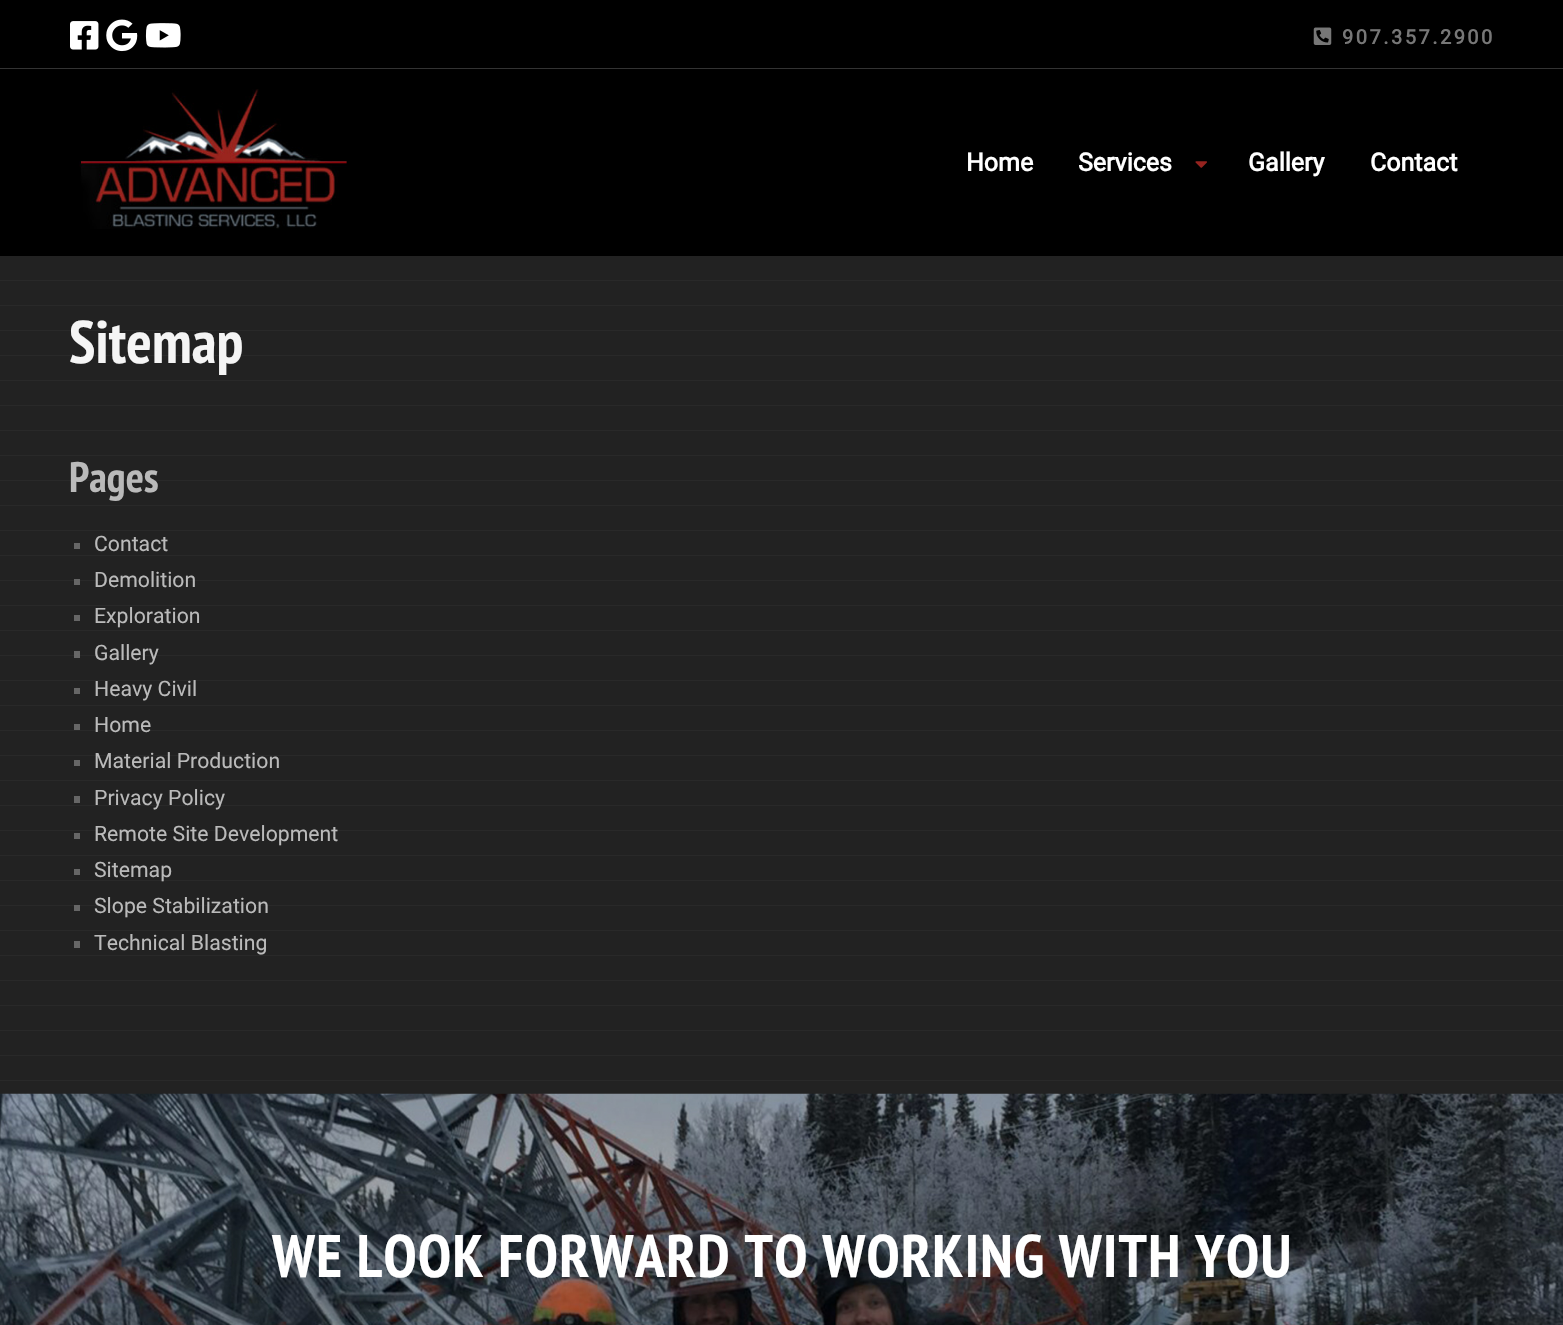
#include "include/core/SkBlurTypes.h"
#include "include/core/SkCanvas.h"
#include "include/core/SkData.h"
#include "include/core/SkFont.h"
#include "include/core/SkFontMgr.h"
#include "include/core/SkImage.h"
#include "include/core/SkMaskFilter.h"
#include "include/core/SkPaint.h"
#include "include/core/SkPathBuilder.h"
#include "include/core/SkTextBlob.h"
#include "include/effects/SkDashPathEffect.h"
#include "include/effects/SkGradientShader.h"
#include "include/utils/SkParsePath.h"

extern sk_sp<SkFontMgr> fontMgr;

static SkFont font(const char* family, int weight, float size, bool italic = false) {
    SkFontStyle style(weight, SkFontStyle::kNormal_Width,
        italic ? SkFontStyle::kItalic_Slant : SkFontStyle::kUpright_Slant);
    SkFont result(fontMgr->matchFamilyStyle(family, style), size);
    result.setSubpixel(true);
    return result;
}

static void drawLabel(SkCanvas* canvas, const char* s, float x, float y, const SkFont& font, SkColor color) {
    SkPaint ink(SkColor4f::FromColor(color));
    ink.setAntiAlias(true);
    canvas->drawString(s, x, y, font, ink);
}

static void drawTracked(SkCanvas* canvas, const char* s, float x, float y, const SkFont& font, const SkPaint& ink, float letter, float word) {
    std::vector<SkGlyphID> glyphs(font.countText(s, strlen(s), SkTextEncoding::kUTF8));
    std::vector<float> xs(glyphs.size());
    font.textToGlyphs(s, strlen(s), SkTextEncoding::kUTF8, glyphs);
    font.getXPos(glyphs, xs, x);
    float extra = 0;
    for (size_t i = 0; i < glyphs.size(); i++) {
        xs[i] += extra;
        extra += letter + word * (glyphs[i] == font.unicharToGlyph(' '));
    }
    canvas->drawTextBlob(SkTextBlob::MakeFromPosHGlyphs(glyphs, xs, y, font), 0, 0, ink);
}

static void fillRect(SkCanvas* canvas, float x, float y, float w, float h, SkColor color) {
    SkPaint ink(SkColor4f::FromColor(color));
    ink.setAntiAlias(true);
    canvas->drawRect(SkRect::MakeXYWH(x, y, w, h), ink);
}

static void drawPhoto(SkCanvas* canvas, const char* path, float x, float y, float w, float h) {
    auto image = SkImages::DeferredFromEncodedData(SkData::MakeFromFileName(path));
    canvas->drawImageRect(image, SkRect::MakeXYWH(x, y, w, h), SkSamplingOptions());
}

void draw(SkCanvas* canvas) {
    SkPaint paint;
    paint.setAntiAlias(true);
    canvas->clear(0xFF000000);
    fillRect(canvas, 0, 68, 1563, 1, 0xFF333333);
    drawPhoto(canvas, "assets/img1.png", 70, 21, 29, 29);
    drawPhoto(canvas, "assets/img2.png", 106, 19, 32, 33);
    drawPhoto(canvas, "assets/img3.png", 145, 23, 36, 25);
    drawPhoto(canvas, "assets/img4.png", 1313, 27, 19, 18);
    SkFont font1 = font("Roboto", 700, 20);
    paint.setColor(0xFF777777);
    drawTracked(canvas, "907.357.2900", 1342, 44, font1, paint, 2.5f, 0);
    drawPhoto(canvas, "assets/img5.png", 79, 89, 268, 140);
    SkFont font2 = font("Roboto", 700, 25);
    drawLabel(canvas, "Home", 966, 171, font2, 0xFFFFFFFF);
    drawLabel(canvas, "Services", 1078, 171, font2, 0xFFFFFFFF);
    drawPhoto(canvas, "assets/img6.png", 1195, 161, 12, 7);
    drawLabel(canvas, "Gallery", 1248, 171, font2, 0xFFFFFFFF);
    drawLabel(canvas, "Contact", 1370, 171, font2, 0xFFFFFFFF);
    fillRect(canvas, 0, 256, 1563, 838, 0xFF222222);
    drawPhoto(canvas, "assets/img7.png", 0, 280, 1563, 801);
    SkFont font3 = font("PT Sans Narrow", 700, 60);
    drawLabel(canvas, "Sitemap", 69, 363, font3, 0xFFF5F5F5);
    SkFont font4 = font("PT Sans Narrow", 700, 42.5f);
    drawLabel(canvas, "Pages", 69, 492, font4, 0xFFBABABA);
    fillRect(canvas, 74, 543, 6, 6, 0xFF666666);
    SkFont font5 = font("Roboto", 400, 21.25f);
    drawLabel(canvas, "Contact", 94, 551, font5, 0xFFBABABA);
    fillRect(canvas, 74, 579, 6, 6, 0xFF666666);
    drawLabel(canvas, "Demolition", 94, 587, font5, 0xFFBABABA);
    fillRect(canvas, 74, 615, 6, 6, 0xFF666666);
    drawLabel(canvas, "Exploration", 94, 623, font5, 0xFFBABABA);
    fillRect(canvas, 74, 651, 6, 7, 0xFF666666);
    drawLabel(canvas, "Gallery", 94, 660, font5, 0xFFBABABA);
    fillRect(canvas, 74, 688, 6, 6, 0xFF666666);
    drawLabel(canvas, "Heavy Civil", 94, 696, font5, 0xFFBABABA);
    fillRect(canvas, 74, 724, 6, 6, 0xFF666666);
    drawLabel(canvas, "Home", 94, 732, font5, 0xFFBABABA);
    fillRect(canvas, 74, 760, 6, 6, 0xFF666666);
    drawLabel(canvas, "Material Production", 94, 768, font5, 0xFFBABABA);
    fillRect(canvas, 74, 796, 6, 7, 0xFF666666);
    drawLabel(canvas, "Privacy Policy", 94, 805, font5, 0xFFBABABA);
    fillRect(canvas, 74, 833, 6, 6, 0xFF666666);
    drawLabel(canvas, "Remote Site Development", 94, 841, font5, 0xFFBABABA);
    fillRect(canvas, 74, 869, 6, 6, 0xFF666666);
    drawLabel(canvas, "Sitemap", 94, 877, font5, 0xFFBABABA);
    fillRect(canvas, 74, 905, 6, 6, 0xFF666666);
    drawLabel(canvas, "Slope Stabilization", 94, 913, font5, 0xFFBABABA);
    fillRect(canvas, 74, 941, 6, 7, 0xFF666666);
    drawLabel(canvas, "Technical Blasting", 94, 950, font5, 0xFFBABABA);
    drawPhoto(canvas, "assets/img8.png", 0, 1093, 1563, 232);
    paint.setColor(0xFFFFFFFF);
    drawTracked(canvas, "WE LOOK FORWARD TO WORKING WITH YOU", 272, 1277, font3, paint, 1.25f, 0);
}
